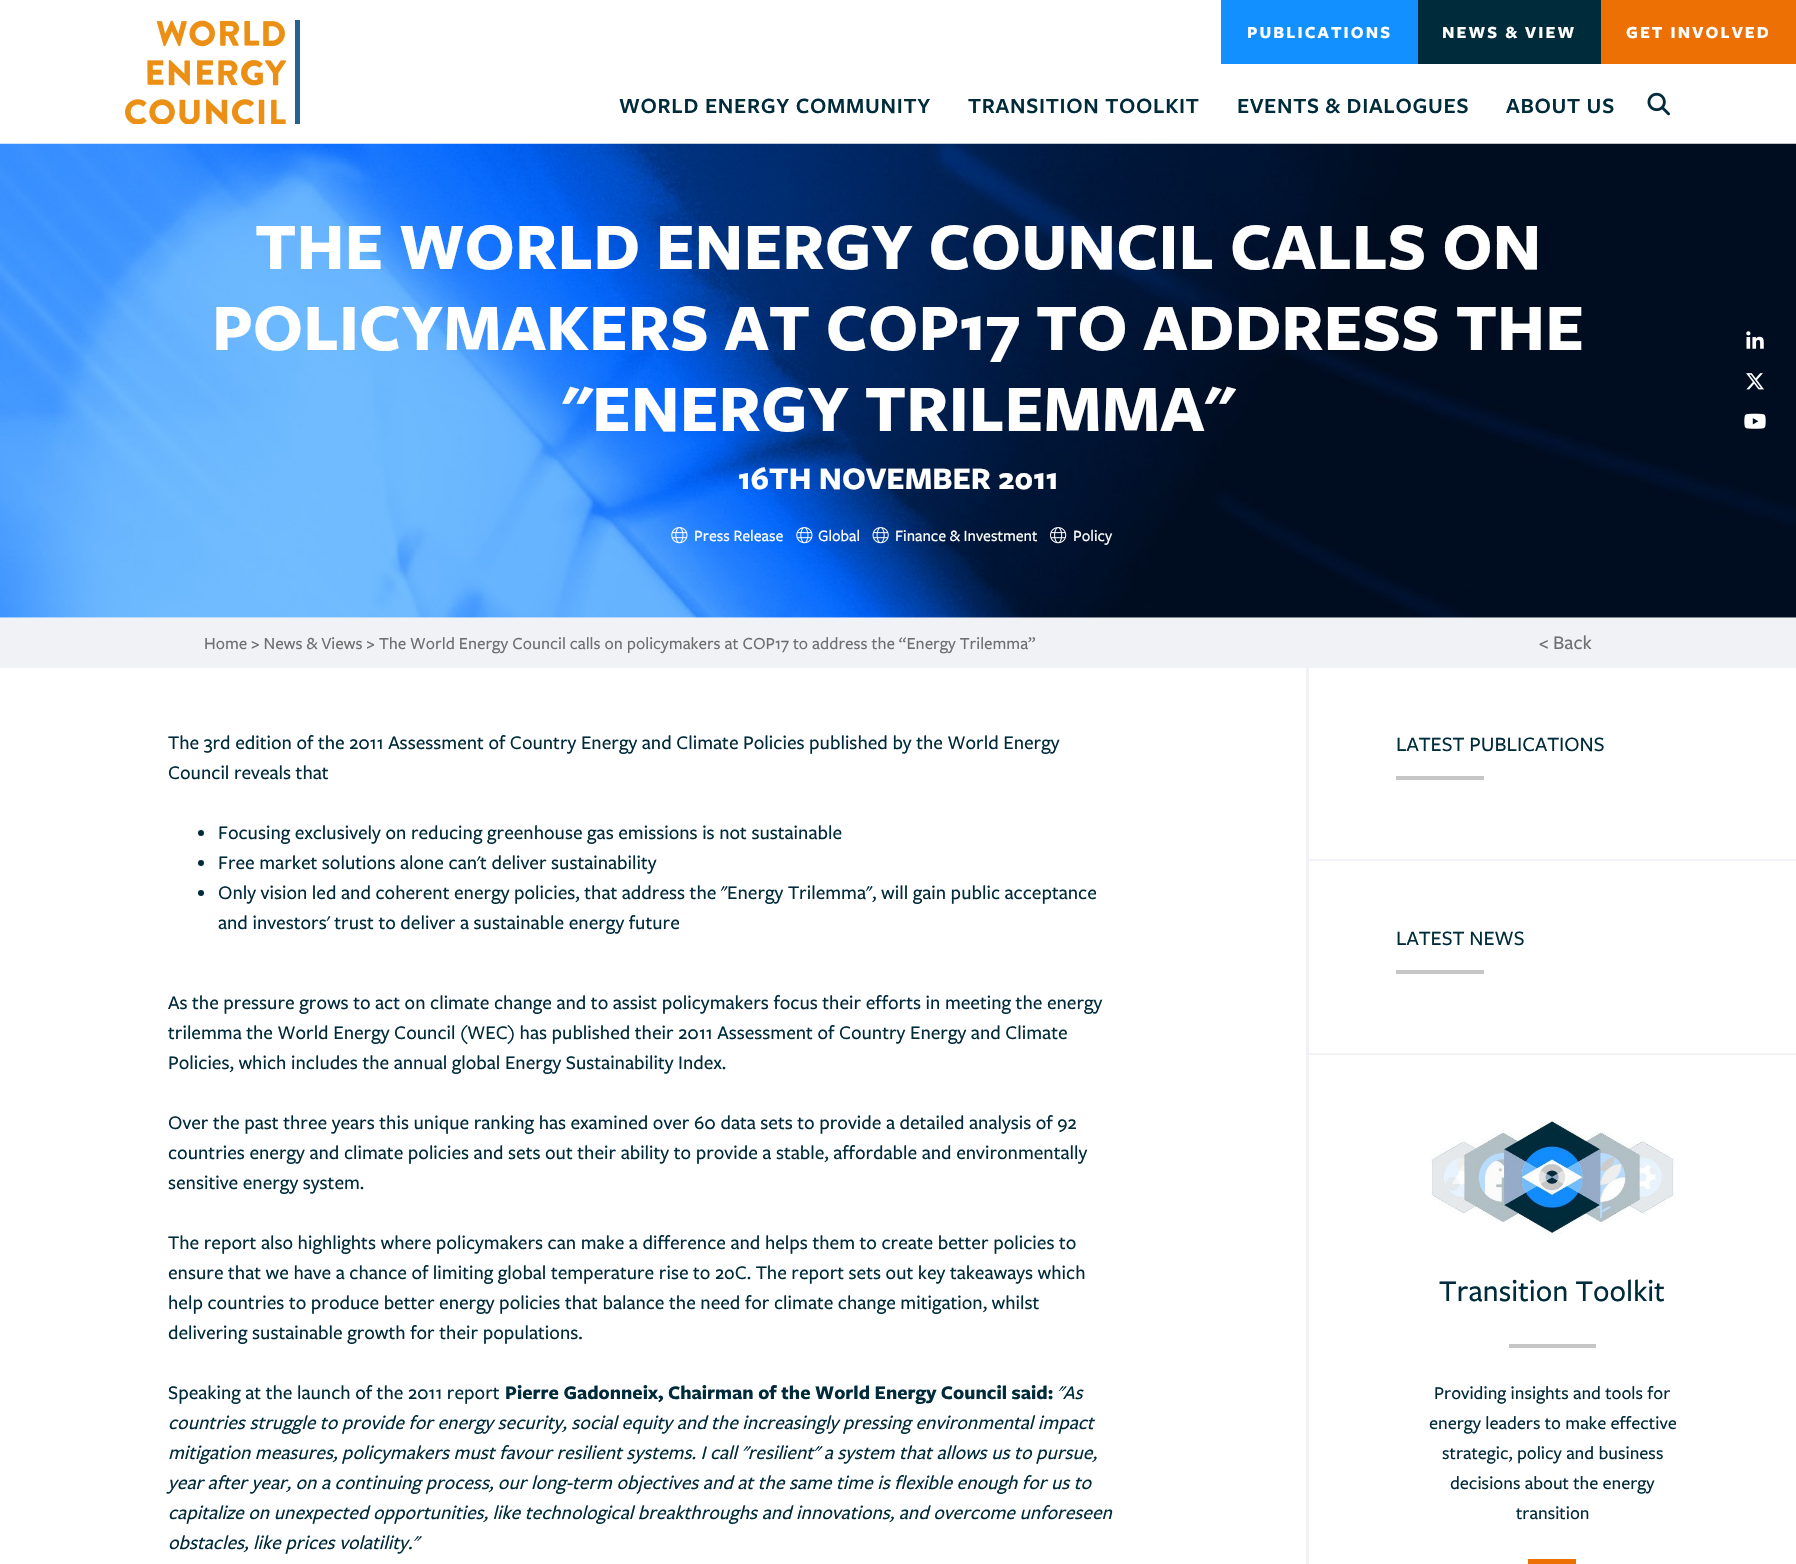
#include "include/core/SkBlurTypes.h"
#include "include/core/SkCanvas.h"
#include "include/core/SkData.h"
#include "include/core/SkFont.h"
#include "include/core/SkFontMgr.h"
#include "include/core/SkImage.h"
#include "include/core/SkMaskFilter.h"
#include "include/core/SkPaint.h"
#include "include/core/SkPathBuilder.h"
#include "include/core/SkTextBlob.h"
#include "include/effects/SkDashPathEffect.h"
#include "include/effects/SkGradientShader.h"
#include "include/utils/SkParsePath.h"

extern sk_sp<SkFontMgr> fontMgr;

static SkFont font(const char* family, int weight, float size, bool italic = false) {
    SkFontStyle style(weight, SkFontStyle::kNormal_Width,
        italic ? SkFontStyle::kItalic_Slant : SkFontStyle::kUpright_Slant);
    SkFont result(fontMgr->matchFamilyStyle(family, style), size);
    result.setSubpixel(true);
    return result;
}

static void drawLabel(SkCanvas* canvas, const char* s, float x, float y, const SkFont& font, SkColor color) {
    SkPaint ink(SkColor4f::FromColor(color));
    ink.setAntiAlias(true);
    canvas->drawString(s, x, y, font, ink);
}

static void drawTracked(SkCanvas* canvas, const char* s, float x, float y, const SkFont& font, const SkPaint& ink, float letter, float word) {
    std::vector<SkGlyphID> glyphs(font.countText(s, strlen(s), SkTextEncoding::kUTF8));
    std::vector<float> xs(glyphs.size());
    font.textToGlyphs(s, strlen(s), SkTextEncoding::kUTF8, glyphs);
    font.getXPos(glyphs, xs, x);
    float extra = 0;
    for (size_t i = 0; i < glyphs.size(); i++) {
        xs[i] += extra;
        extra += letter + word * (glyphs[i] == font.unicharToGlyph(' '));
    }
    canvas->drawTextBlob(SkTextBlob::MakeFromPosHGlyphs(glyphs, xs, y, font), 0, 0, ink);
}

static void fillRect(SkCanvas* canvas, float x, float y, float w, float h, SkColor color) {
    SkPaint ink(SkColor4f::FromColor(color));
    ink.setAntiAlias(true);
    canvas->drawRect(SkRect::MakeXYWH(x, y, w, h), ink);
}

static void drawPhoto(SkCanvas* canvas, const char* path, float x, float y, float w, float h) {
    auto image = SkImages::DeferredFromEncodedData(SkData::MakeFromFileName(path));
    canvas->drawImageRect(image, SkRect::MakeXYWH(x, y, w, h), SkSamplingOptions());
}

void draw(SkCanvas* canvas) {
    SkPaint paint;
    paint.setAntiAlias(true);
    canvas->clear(0xFFFFFFFF);
    drawPhoto(canvas, "assets/img1.png", 125, 20, 175, 104);
    fillRect(canvas, 1221, 0, 197, 64, 0xFF1290FF);
    SkFont font1 = font("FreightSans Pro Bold", 700, 17.5f);
    paint.setColor(0xFFFFFFFF);
    drawTracked(canvas, "PUBLICATIONS", 1247, 38, font1, paint, 2.1f, 0);
    fillRect(canvas, 1418, 0, 183, 64, 0xFF002B3B);
    drawTracked(canvas, "NEWS & VIEW", 1442, 38, font1, paint, 2.1f, 0);
    fillRect(canvas, 1601, 0, 195, 64, 0xFFED7004);
    drawTracked(canvas, "GET INVOLVED", 1626, 38, font1, paint, 2.1f, 0);
    SkFont font2 = font("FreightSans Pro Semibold", 600, 22.5f);
    paint.setColor(0xFF002B3B);
    drawTracked(canvas, "WORLD ENERGY COMMUNITY", 619, 113, font2, paint, 0.7f, 0);
    drawTracked(canvas, "TRANSITION TOOLKIT", 968, 113, font2, paint, 0.7f, 0);
    drawTracked(canvas, "EVENTS & DIALOGUES", 1237, 113, font2, paint, 0.7f, 0);
    drawTracked(canvas, "ABOUT US", 1506, 113, font2, paint, 0.7f, 0);
    drawPhoto(canvas, "assets/img2.png", 1647, 92, 23, 24);
    drawPhoto(canvas, "assets/img3.png", 0, 143, 1796, 475);
    SkFont font3 = font("FreightSans Pro Bold", 700, 68.75f);
    drawLabel(canvas, "THE WORLD ENERGY COUNCIL CALLS ON", 255, 269, font3, 0xFFFFFFFF);
    drawLabel(canvas, "POLICYMAKERS AT COP17 TO ADDRESS THE", 212, 350, font3, 0xFFFFFFFF);
    drawLabel(canvas, "\"ENERGY TRILEMMA\"", 562, 431, font3, 0xFFFFFFFF);
    SkFont font4 = font("FreightSans Pro Bold", 700, 32.5f);
    drawLabel(canvas, "16TH NOVEMBER 2011", 738, 489, font4, 0xFFFFFFFF);
    drawPhoto(canvas, "assets/img4.png", 1746, 331, 18, 18);
    drawPhoto(canvas, "assets/img5.png", 1746, 373, 18, 17);
    drawPhoto(canvas, "assets/img6.png", 1744, 413, 22, 16);
    drawPhoto(canvas, "assets/img7.png", 671, 527, 17, 17);
    SkFont font5 = font("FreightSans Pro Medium", 500, 16.25f);
    drawLabel(canvas, "Press Release", 694, 541, font5, 0xFFFFFFFF);
    drawPhoto(canvas, "assets/img8.png", 796, 527, 17, 17);
    drawLabel(canvas, "Global", 818, 541, font5, 0xFFFFFFFF);
    drawPhoto(canvas, "assets/img9.png", 872, 527, 17, 17);
    drawLabel(canvas, "Finance & Investment", 895, 541, font5, 0xFFFFFFFF);
    drawPhoto(canvas, "assets/img10.png", 1050, 527, 17, 17);
    drawLabel(canvas, "Policy", 1073, 541, font5, 0xFFFFFFFF);
    fillRect(canvas, 0, 618, 1796, 50, 0xFFF0F2F6);
    SkFont font6 = font("FreightSans Pro Medium", 500, 17.5f);
    drawLabel(canvas, "Home > News & Views > The World Energy Council calls on policymakers at COP17 to address the “Energy Trilemma”", 204, 649, font6, 0xFF706F6F);
    SkFont font7 = font("FreightSans Pro Medium", 500, 20);
    drawLabel(canvas, "< Back", 1539, 649, font7, 0xFF706F6F);
    drawLabel(canvas, "The 3rd edition of the 2011 Assessment of Country Energy and Climate Policies published by the World Energy", 168, 749, font7, 0xFF002B3B);
    drawLabel(canvas, "Council reveals that", 168, 779, font7, 0xFF002B3B);
    canvas->drawCircle(201, 833, 3, paint);
    drawLabel(canvas, "Focusing exclusively on reducing greenhouse gas emissions is not sustainable", 218, 839, font7, 0xFF002B3B);
    canvas->drawCircle(201, 863, 3, paint);
    drawLabel(canvas, "Free market solutions alone can't deliver sustainability", 218, 869, font7, 0xFF002B3B);
    canvas->drawCircle(201, 893, 3, paint);
    drawLabel(canvas, "Only vision led and coherent energy policies, that address the \"Energy Trilemma\", will gain public acceptance", 218, 899, font7, 0xFF002B3B);
    drawLabel(canvas, "and investors' trust to deliver a sustainable energy future", 218, 929, font7, 0xFF002B3B);
    drawLabel(canvas, "As the pressure grows to act on climate change and to assist policymakers focus their efforts in meeting the energy", 168, 1009, font7, 0xFF002B3B);
    drawLabel(canvas, "trilemma the World Energy Council (WEC) has published their 2011 Assessment of Country Energy and Climate", 168, 1039, font7, 0xFF002B3B);
    drawLabel(canvas, "Policies, which includes the annual global Energy Sustainability Index.", 168, 1069, font7, 0xFF002B3B);
    drawLabel(canvas, "Over the past three years this unique ranking has examined over 60 data sets to provide a detailed analysis of 92", 168, 1129, font7, 0xFF002B3B);
    drawLabel(canvas, "countries energy and climate policies and sets out their ability to provide a stable, affordable and environmentally", 168, 1159, font7, 0xFF002B3B);
    drawLabel(canvas, "sensitive energy system.", 168, 1189, font7, 0xFF002B3B);
    drawLabel(canvas, "The report also highlights where policymakers can make a difference and helps them to create better policies to", 168, 1249, font7, 0xFF002B3B);
    drawLabel(canvas, "ensure that we have a chance of limiting global temperature rise to 2oC. The report sets out key takeaways which", 168, 1279, font7, 0xFF002B3B);
    drawLabel(canvas, "help countries to produce better energy policies that balance the need for climate change mitigation, whilst", 168, 1309, font7, 0xFF002B3B);
    drawLabel(canvas, "delivering sustainable growth for their populations.", 168, 1339, font7, 0xFF002B3B);
    drawLabel(canvas, "Speaking at the launch of the 2011 report", 168, 1399, font7, 0xFF002B3B);
    SkFont font8 = font("FreightSans Pro Bold", 700, 20);
    drawLabel(canvas, "Pierre Gadonneix, Chairman of the World Energy Council said:", 505, 1399, font8, 0xFF002B3B);
    SkFont font9 = font("FreightSans Pro Medium", 500, 20, true);
    drawLabel(canvas, "\"As", 1057, 1399, font9, 0xFF002B3B);
    drawLabel(canvas, "countries struggle to provide for energy security, social equity and the increasingly pressing environmental impact", 168, 1429, font9, 0xFF002B3B);
    drawLabel(canvas, "mitigation measures, policymakers must favour resilient systems. I call \"resilient\" a system that allows us to pursue,", 168, 1459, font9, 0xFF002B3B);
    drawLabel(canvas, "year after year, on a continuing process, our long-term objectives and at the same time is flexible enough for us to", 168, 1489, font9, 0xFF002B3B);
    drawLabel(canvas, "capitalize on unexpected opportunities, like technological breakthroughs and innovations, and overcome unforeseen", 168, 1519, font9, 0xFF002B3B);
    drawLabel(canvas, "obstacles, like prices volatility.\"", 168, 1549, font9, 0xFF002B3B);
    fillRect(canvas, 1306, 859, 490, 2, 0xFFF0F2F6);
    fillRect(canvas, 1306, 668, 3, 193, 0xFFF0F2F6);
    SkFont font10 = font("FreightSans Pro Medium", 500, 21.25f);
    drawLabel(canvas, "LATEST PUBLICATIONS", 1396, 751, font10, 0xFF002B3B);
    fillRect(canvas, 1396, 776, 88, 4, 0xFFC6C6C6);
    fillRect(canvas, 1306, 1053, 490, 2, 0xFFF0F2F6);
    fillRect(canvas, 1306, 861, 3, 703, 0xFFF0F2F6);
    drawLabel(canvas, "LATEST NEWS", 1396, 945, font10, 0xFF002B3B);
    fillRect(canvas, 1396, 970, 88, 4, 0xFFC6C6C6);
    drawPhoto(canvas, "assets/img11.png", 1430, 1119, 246, 120);
    SkFont font11 = font("FreightSans Pro Medium", 500, 31.25f);
    drawLabel(canvas, "Transition Toolkit", 1439, 1301, font11, 0xFF002B3B);
    fillRect(canvas, 1509, 1344, 87, 4, 0xFFC6C6C6);
    SkFont font12 = font("FreightSans Pro Medium", 500, 18.75f);
    drawLabel(canvas, "Providing insights and tools for", 1434, 1399, font12, 0xFF002B3B);
    drawLabel(canvas, "energy leaders to make effective", 1429, 1429, font12, 0xFF002B3B);
    drawLabel(canvas, "strategic, policy and business", 1442, 1459, font12, 0xFF002B3B);
    drawLabel(canvas, "decisions about the energy", 1450, 1489, font12, 0xFF002B3B);
    drawLabel(canvas, "transition", 1516, 1519, font12, 0xFF002B3B);
    fillRect(canvas, 1528, 1559, 48, 5, 0xFFED7004);
}
